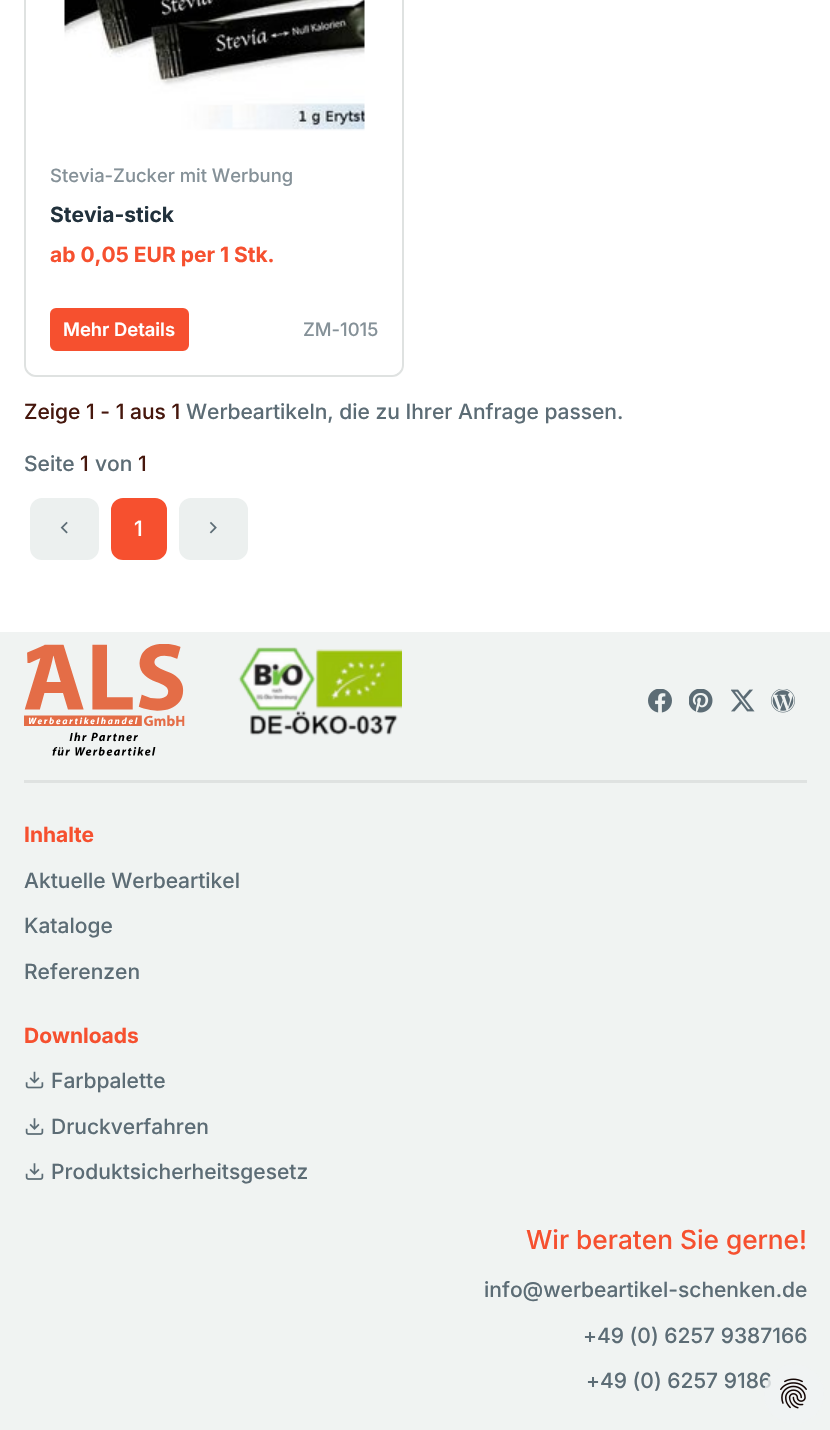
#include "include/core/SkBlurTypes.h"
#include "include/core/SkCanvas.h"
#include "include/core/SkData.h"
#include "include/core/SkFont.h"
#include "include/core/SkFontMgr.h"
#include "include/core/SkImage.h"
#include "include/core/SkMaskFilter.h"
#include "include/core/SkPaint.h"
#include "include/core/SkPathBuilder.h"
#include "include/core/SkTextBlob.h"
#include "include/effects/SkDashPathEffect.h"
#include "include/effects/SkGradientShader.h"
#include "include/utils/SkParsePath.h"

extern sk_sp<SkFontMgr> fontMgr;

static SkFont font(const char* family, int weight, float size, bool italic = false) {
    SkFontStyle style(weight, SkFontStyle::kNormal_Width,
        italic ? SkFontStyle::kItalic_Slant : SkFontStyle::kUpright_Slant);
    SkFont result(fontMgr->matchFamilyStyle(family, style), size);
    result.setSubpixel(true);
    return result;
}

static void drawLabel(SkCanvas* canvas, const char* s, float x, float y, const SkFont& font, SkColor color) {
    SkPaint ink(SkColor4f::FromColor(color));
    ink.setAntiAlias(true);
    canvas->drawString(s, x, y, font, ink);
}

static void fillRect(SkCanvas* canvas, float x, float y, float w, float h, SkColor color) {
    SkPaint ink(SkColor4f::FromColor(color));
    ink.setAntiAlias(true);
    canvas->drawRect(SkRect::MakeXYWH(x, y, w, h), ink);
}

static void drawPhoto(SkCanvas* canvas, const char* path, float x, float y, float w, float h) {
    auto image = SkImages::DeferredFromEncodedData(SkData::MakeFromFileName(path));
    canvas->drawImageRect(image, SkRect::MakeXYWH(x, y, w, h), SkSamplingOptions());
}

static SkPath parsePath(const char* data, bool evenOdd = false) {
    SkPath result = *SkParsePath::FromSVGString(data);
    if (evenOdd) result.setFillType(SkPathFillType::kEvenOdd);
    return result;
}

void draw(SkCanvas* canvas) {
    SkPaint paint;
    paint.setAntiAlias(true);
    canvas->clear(0xFFFFFFFF);
    paint.setStroke(true);
    paint.setStrokeWidth(2);
    paint.setColor(0xFFDFE2E1);
    canvas->drawRoundRect(SkRect::MakeXYWH(25, -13, 378, 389), 11, 11, paint);
    drawPhoto(canvas, "assets/img1.png", 64, 0, 301, 131);
    SkFont font1 = font("Inter", 500, 18.4f);
    drawLabel(canvas, "Stevia-Zucker mit Werbung", 50, 182, font1, 0xFF859198);
    SkFont font2 = font("Inter", 700, 21);
    drawLabel(canvas, "Stevia-stick", 50, 222, font2, 0xFF21313C);
    drawLabel(canvas, "ab 0,05 EUR per 1 Stk.", 50, 262, font2, 0xFFF6502F);
    paint.setStroke(false);
    paint.setColor(0xFFFFFFFF);
    canvas->drawPath(parsePath("M26 296H402V364C402 370 397 375 391 375H37C31 375 26 370 26 364Z"), paint);
    paint.setColor(0xFFF6502F);
    canvas->drawRoundRect(SkRect::MakeXYWH(51, 309, 137, 41), 5, 5, paint);
    paint.setStroke(true);
    canvas->drawRoundRect(SkRect::MakeXYWH(51, 309, 137, 41), 5, 5, paint);
    SkFont font3 = font("Inter", 600, 18.4f);
    drawLabel(canvas, "Mehr Details", 63, 336, font3, 0xFFFFFFFF);
    drawLabel(canvas, "ZM-1015", 303, 336, font1, 0xFF859198);
    SkFont font4 = font("Inter", 500, 21);
    drawLabel(canvas, "Zeige 1 - 1 aus 1", 24, 419, font4, 0xFF46170D);
    drawLabel(canvas, "Werbeartikeln, die zu Ihrer Anfrage passen.", 186, 419, font4, 0xFF5C6C75);
    drawLabel(canvas, "Seite", 24, 471, font4, 0xFF5C6C75);
    drawLabel(canvas, "1", 80, 471, font4, 0xFF46170D);
    drawLabel(canvas, "von", 95, 471, font4, 0xFF5C6C75);
    drawLabel(canvas, "1", 138, 471, font4, 0xFF46170D);
    paint.setStroke(false);
    paint.setColor(0xFFECF0EF);
    canvas->drawRoundRect(SkRect::MakeXYWH(31, 499, 67, 60), 11, 11, paint);
    paint.setStroke(true);
    canvas->drawRoundRect(SkRect::MakeXYWH(31, 499, 67, 60), 11, 11, paint);
    drawPhoto(canvas, "assets/img2.png", 60, 521, 8, 13);
    paint.setStroke(false);
    paint.setColor(0xFFF6502F);
    canvas->drawRoundRect(SkRect::MakeXYWH(112, 499, 54, 60), 11, 11, paint);
    paint.setStroke(true);
    canvas->drawRoundRect(SkRect::MakeXYWH(112, 499, 54, 60), 11, 11, paint);
    drawLabel(canvas, "1", 134, 536, font4, 0xFFFFFFFF);
    paint.setStroke(false);
    paint.setColor(0xFFECF0EF);
    canvas->drawRoundRect(SkRect::MakeXYWH(180, 499, 67, 60), 11, 11, paint);
    paint.setStroke(true);
    canvas->drawRoundRect(SkRect::MakeXYWH(180, 499, 67, 60), 11, 11, paint);
    drawPhoto(canvas, "assets/img3.png", 209, 521, 8, 13);
    fillRect(canvas, 0, 632, 830, 798, 0xFFF0F3F2);
    drawPhoto(canvas, "assets/img4.png", 24, 644, 161, 112);
    drawPhoto(canvas, "assets/img5.png", 238, 647, 164, 89);
    drawPhoto(canvas, "assets/img6.png", 648, 689, 24, 24);
    drawPhoto(canvas, "assets/img7.png", 689, 689, 24, 24);
    drawPhoto(canvas, "assets/img8.png", 731, 689, 24, 23);
    drawPhoto(canvas, "assets/img9.png", 771, 689, 24, 24);
    fillRect(canvas, 24, 780, 783, 3, 0xFFDFE2E1);
    drawLabel(canvas, "Inhalte", 24, 842, font2, 0xFFF6502F);
    drawLabel(canvas, "Aktuelle Werbeartikel", 24, 888, font4, 0xFF5C6C75);
    drawLabel(canvas, "Kataloge", 24, 933, font4, 0xFF5C6C75);
    drawLabel(canvas, "Referenzen", 24, 979, font4, 0xFF5C6C75);
    drawLabel(canvas, "Downloads", 24, 1043, font2, 0xFFF6502F);
    drawPhoto(canvas, "assets/img10.png", 25, 1071, 19, 18);
    drawLabel(canvas, "Farbpalette", 51, 1088, font4, 0xFF5C6C75);
    drawPhoto(canvas, "assets/img11.png", 25, 1118, 19, 17);
    drawLabel(canvas, "Druckverfahren", 51, 1134, font4, 0xFF5C6C75);
    drawPhoto(canvas, "assets/img11.png", 25, 1163, 19, 17);
    drawLabel(canvas, "Produktsicherheitsgesetz", 51, 1179, font4, 0xFF5C6C75);
    SkFont font5 = font("Inter", 500, 26.25f);
    drawLabel(canvas, "Wir beraten Sie gerne!", 526, 1249, font5, 0xFFF6502F);
    drawLabel(canvas, "info@werbeartikel-schenken.de", 484, 1297, font4, 0xFF5C6C75);
    drawLabel(canvas, "+49 (0) 6257 9387166", 583, 1343, font4, 0xFF5C6C75);
    drawLabel(canvas, "+49 (0) 6257 9186", 586, 1388, font4, 0xFF5C6C75);
    paint.setStroke(false);
    paint.setColor(0xCCF0F3F2);
    canvas->drawCircle(794, 1394, 30, paint);
    drawPhoto(canvas, "assets/img12.png", 780, 1378, 27, 31);
}
